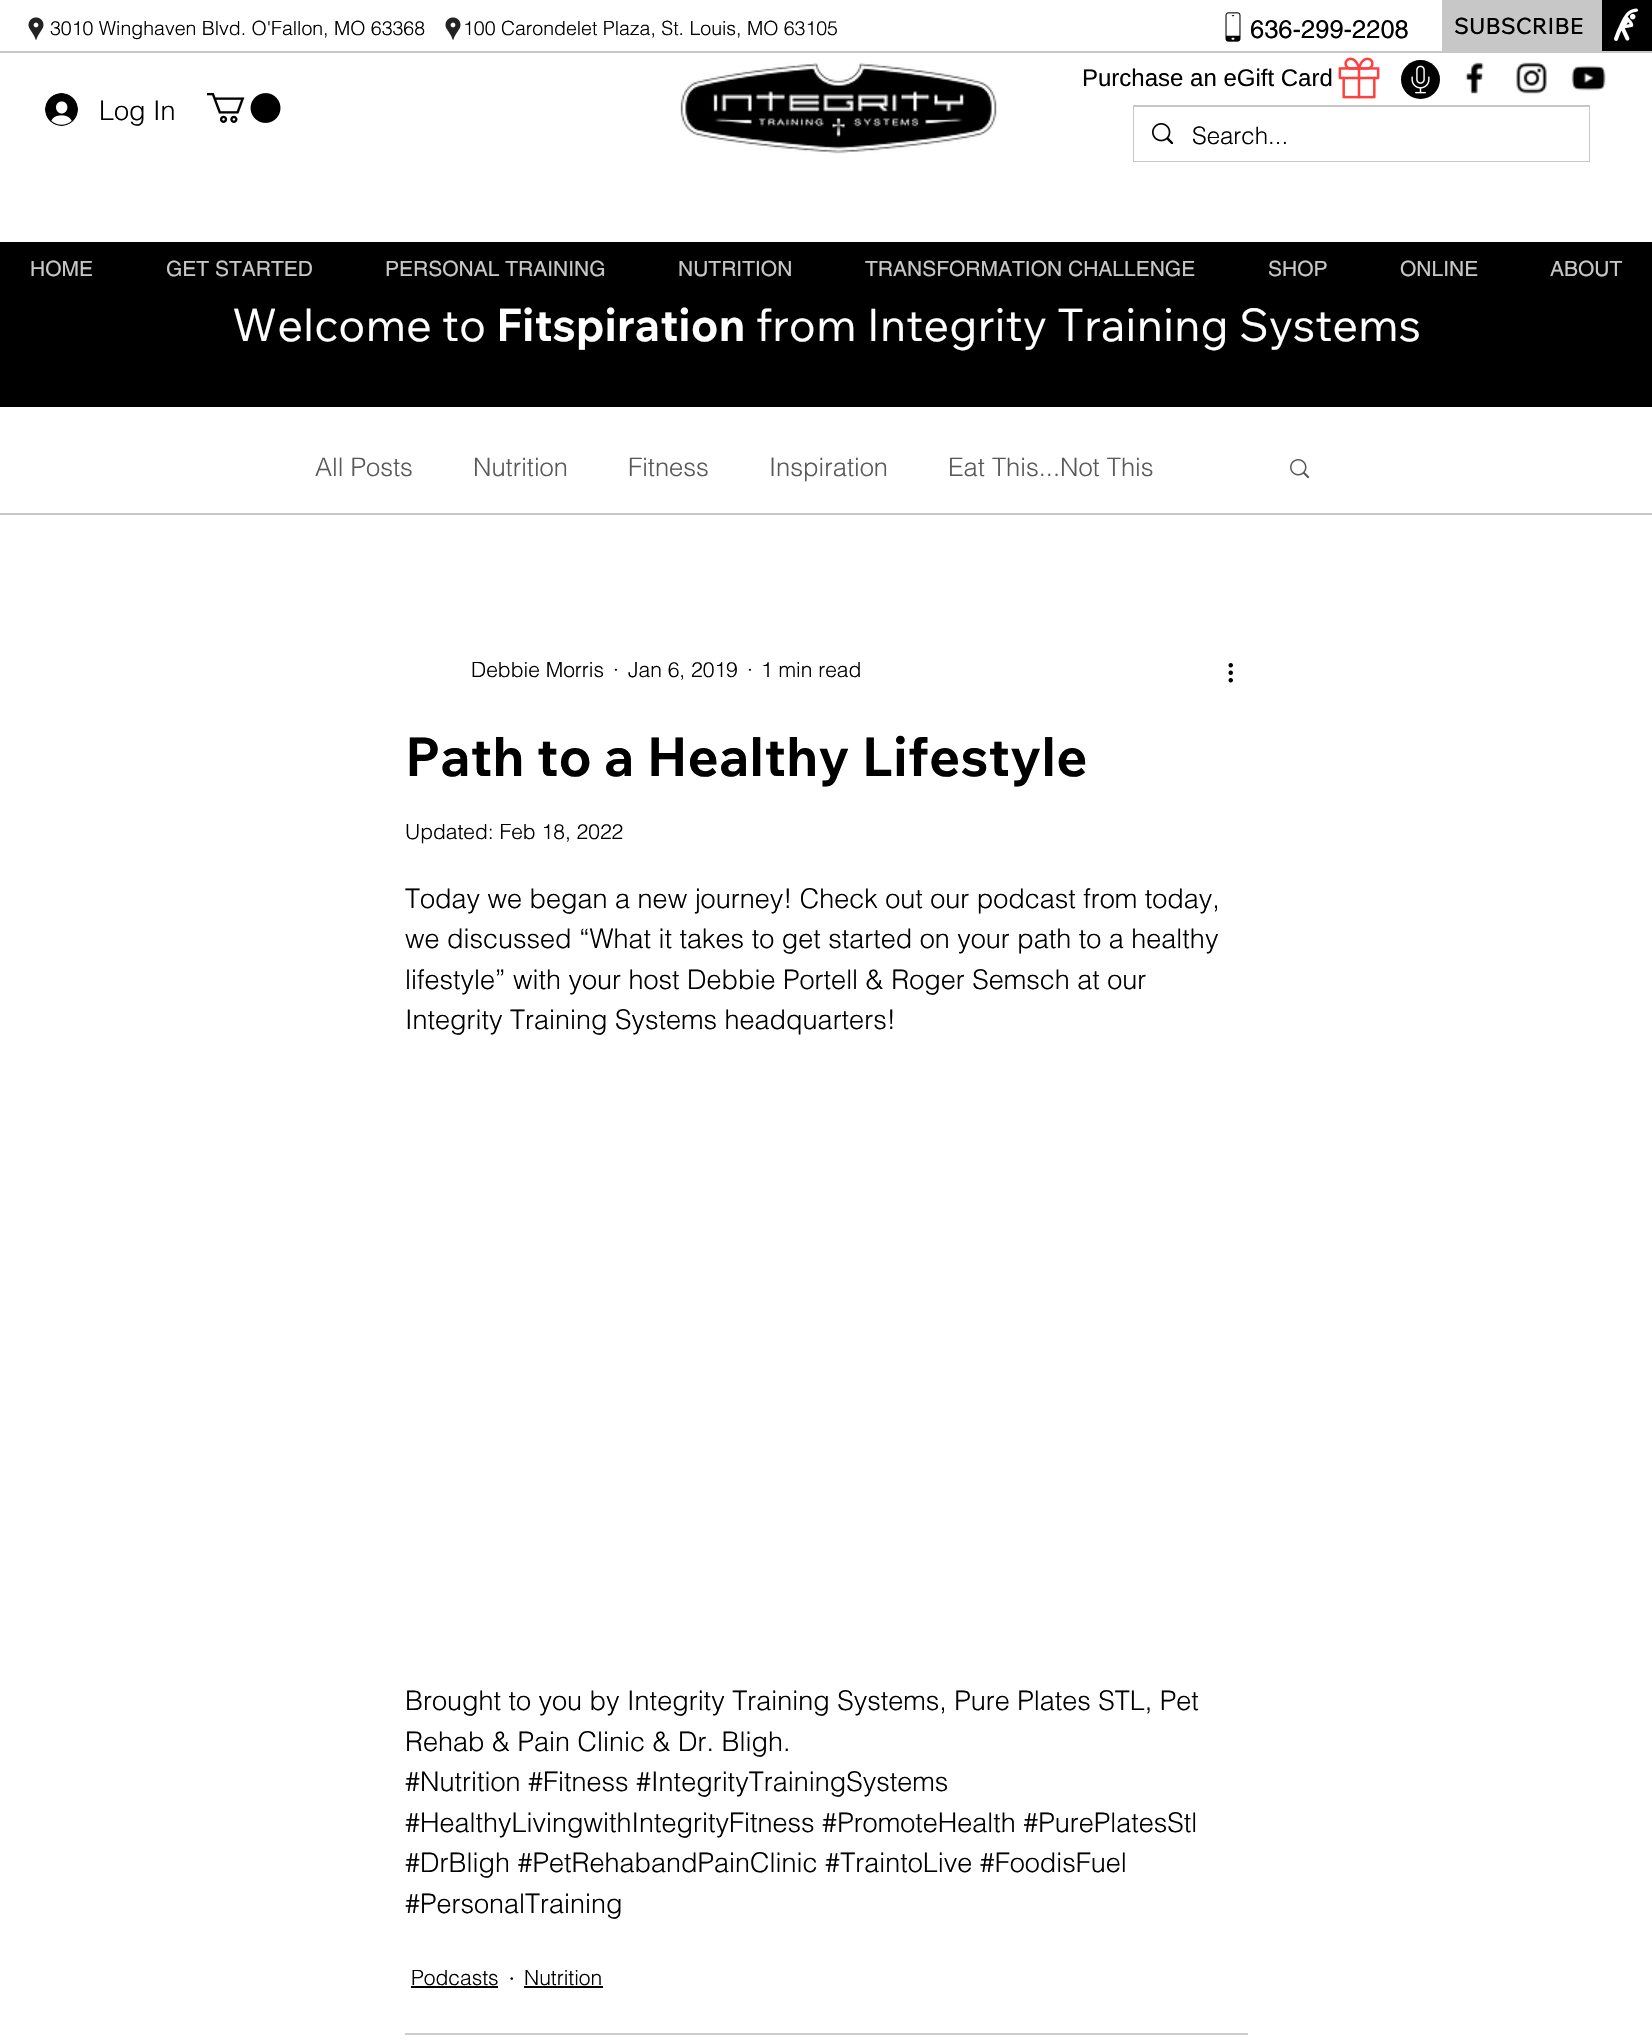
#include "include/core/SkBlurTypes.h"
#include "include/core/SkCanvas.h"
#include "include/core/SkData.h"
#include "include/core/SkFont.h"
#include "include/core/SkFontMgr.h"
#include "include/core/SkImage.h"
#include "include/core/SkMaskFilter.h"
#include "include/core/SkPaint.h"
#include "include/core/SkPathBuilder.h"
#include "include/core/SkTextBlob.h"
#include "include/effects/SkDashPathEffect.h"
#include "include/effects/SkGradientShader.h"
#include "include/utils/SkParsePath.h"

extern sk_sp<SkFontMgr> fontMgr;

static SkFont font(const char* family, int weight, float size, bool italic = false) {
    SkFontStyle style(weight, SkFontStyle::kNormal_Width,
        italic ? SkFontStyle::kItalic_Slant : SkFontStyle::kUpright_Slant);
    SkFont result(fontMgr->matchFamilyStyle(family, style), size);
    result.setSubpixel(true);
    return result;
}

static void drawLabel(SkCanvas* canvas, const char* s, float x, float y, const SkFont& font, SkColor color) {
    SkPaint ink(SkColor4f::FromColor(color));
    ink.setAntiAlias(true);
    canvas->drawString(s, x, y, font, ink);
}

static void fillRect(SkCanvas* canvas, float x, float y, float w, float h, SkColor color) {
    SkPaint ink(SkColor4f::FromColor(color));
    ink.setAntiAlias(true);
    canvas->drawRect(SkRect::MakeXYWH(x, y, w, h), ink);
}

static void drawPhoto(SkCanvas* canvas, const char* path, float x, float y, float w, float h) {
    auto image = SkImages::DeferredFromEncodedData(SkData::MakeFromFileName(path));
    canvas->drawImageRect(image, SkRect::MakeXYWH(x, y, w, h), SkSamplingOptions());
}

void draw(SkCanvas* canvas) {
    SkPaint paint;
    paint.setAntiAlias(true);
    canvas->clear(0xFFFFFFFF);
    fillRect(canvas, 1442, 0, 160, 51, 0xFFC7C7C7);
    SkFont font1 = font("Wix Madefor Text", 500, 22.5f);
    drawLabel(canvas, "SUBSCRIBE", 1454, 34, font1, 0xFF000000);
    fillRect(canvas, 1602, 0, 50, 51, 0xFF000000);
    drawPhoto(canvas, "assets/img1.png", 1614, 8, 24, 33);
    drawPhoto(canvas, "assets/img2.png", 28, 17, 16, 23);
    drawPhoto(canvas, "assets/img2.png", 445, 17, 16, 23);
    SkFont font2 = font("helvetica", 300, 19.5f);
    drawLabel(canvas, "3010 Winghaven Blvd. O'Fallon, MO 63368       100 Carondelet Plaza, St. Louis, MO 63105", 50, 35, font2, 0xFF000000);
    drawPhoto(canvas, "assets/img3.png", 1225, 12, 16, 30);
    SkFont font3 = font("helvetica", 400, 25.5f);
    drawLabel(canvas, "636-299-2208", 1250, 38, font3, 0xFF000000);
    fillRect(canvas, 0, 51, 1652, 2, 0xFFC7C7C7);
    drawPhoto(canvas, "assets/img4.png", 45, 93, 33, 33);
    SkFont font4 = font("helvetica", 300, 27);
    drawLabel(canvas, "Log In", 99, 120, font4, 0xFF000000);
    drawPhoto(canvas, "assets/img5.png", 207, 93, 74, 30);
    drawPhoto(canvas, "assets/img6.png", 680, 62, 317, 92);
    SkFont font5 = font("Liberation Sans", 400, 24);
    drawLabel(canvas, "Purchase an eGift Card", 1082, 86, font5, 0xFF000000);
    drawPhoto(canvas, "assets/img7.png", 1338, 57, 42, 42);
    paint.setColor(0xFF000000);
    canvas->drawCircle(1420.5f, 79.5f, 19.5f, paint);
    drawPhoto(canvas, "assets/img8.png", 1411, 65, 19, 29);
    drawPhoto(canvas, "assets/img9.png", 1465, 62, 19, 32);
    drawPhoto(canvas, "assets/img10.png", 1516, 62, 31, 32);
    drawPhoto(canvas, "assets/img11.png", 1571, 65, 35, 26);
    paint.setStroke(true);
    paint.setStrokeWidth(2);
    paint.setColor(0xFFC7C7C7);
    canvas->drawRect(SkRect::MakeXYWH(1134, 106, 455, 55), paint);
    fillRect(canvas, 1134, 107, 455, 54, 0xFFFFFFFF);
    drawPhoto(canvas, "assets/img12.png", 1152, 123, 21, 21);
    SkFont font6 = font("helvetica", 300, 24);
    drawLabel(canvas, "Search...", 1192, 144, font6, 0xFF000000);
    fillRect(canvas, 0, 242, 1652, 165, 0xFF000000);
    SkFont font7 = font("helvetica", 400, 21);
    drawLabel(canvas, "HOME", 30, 276, font7, 0xFFC7C7C7);
    drawLabel(canvas, "GET STARTED", 166, 276, font7, 0xFFC7C7C7);
    drawLabel(canvas, "PERSONAL TRAINING", 385, 276, font7, 0xFFC7C7C7);
    drawLabel(canvas, "NUTRITION", 678, 276, font7, 0xFFC7C7C7);
    drawLabel(canvas, "TRANSFORMATION CHALLENGE", 865, 276, font7, 0xFFC7C7C7);
    drawLabel(canvas, "SHOP", 1268, 276, font7, 0xFFC7C7C7);
    drawLabel(canvas, "ONLINE", 1400, 276, font7, 0xFFC7C7C7);
    drawLabel(canvas, "ABOUT", 1550, 276, font7, 0xFFC7C7C7);
    SkFont font8 = font("Wix Madefor Text", 400, 45);
    drawLabel(canvas, "Welcome to", 232, 341, font8, 0xFFFFFFFF);
    SkFont font9 = font("Wix Madefor Text", 700, 45);
    drawLabel(canvas, "Fitspiration", 496, 341, font9, 0xFFFFFFFF);
    drawLabel(canvas, "from Integrity Training Systems", 756, 341, font8, 0xFFFFFFFF);
    SkFont font10 = font("helvetica", 300, 25.5f);
    drawLabel(canvas, "All Posts", 315, 476, font10, 0xFF595959);
    drawLabel(canvas, "Nutrition", 473, 476, font10, 0xFF595959);
    drawLabel(canvas, "Fitness", 628, 476, font10, 0xFF595959);
    drawLabel(canvas, "Inspiration", 769, 476, font10, 0xFF595959);
    drawLabel(canvas, "Eat This...Not This", 948, 476, font10, 0xFF595959);
    drawPhoto(canvas, "assets/img13.png", 1290, 459, 20, 20);
    SkFont font11 = font("helvetica", 300, 21);
    drawLabel(canvas, "Debbie Morris", 471, 677, font11, 0xFF000000);
    drawLabel(canvas, "·", 613, 677, font11, 0xFF000000);
    drawLabel(canvas, "Jan 6, 2019", 628, 677, font11, 0xFF000000);
    drawLabel(canvas, "·", 747, 677, font11, 0xFF000000);
    drawLabel(canvas, "1 min read", 761, 677, font11, 0xFF000000);
    drawPhoto(canvas, "assets/img14.png", 1228, 663, 5, 20);
    SkFont font12 = font("Wix Madefor Text", 700, 54);
    drawLabel(canvas, "Path to a Healthy Lifestyle", 405, 776, font12, 0xFF000000);
    drawLabel(canvas, "Updated: Feb 18, 2022", 405, 839, font11, 0xFF000000);
    drawLabel(canvas, "Today we began a new journey! Check out our podcast from today,", 405, 908, font4, 0xFF000000);
    drawLabel(canvas, "we discussed “What it takes to get started on your path to a healthy", 405, 948, font4, 0xFF000000);
    drawLabel(canvas, "lifestyle” with your host Debbie Portell & Roger Semsch at our", 405, 989, font4, 0xFF000000);
    drawLabel(canvas, "Integrity Training Systems headquarters!", 405, 1029, font4, 0xFF000000);
    drawLabel(canvas, "Brought to you by Integrity Training Systems, Pure Plates STL, Pet", 405, 1710, font4, 0xFF000000);
    drawLabel(canvas, "Rehab & Pain Clinic & Dr. Bligh.", 405, 1751, font4, 0xFF000000);
    drawLabel(canvas, "#Nutrition #Fitness #IntegrityTrainingSystems", 405, 1791, font4, 0xFF000000);
    drawLabel(canvas, "#HealthyLivingwithIntegrityFitness #PromoteHealth #PurePlatesStl", 405, 1832, font4, 0xFF000000);
    drawLabel(canvas, "#DrBligh #PetRehabandPainClinic #TraintoLive #FoodisFuel", 405, 1872, font4, 0xFF000000);
    drawLabel(canvas, "#PersonalTraining", 405, 1913, font4, 0xFF000000);
    drawLabel(canvas, "Podcasts", 411, 1985, font11, 0xFF000000);
    fillRect(canvas, 411, 1986, 87, 2, 0xFF000000);
    drawLabel(canvas, "·", 508, 1988, font4, 0xFF000000);
    drawLabel(canvas, "Nutrition", 524, 1985, font11, 0xFF000000);
    fillRect(canvas, 524, 1986, 79, 2, 0xFF000000);
    fillRect(canvas, 405, 2033, 843, 2, 0xFFCCCCCC);
    fillRect(canvas, 0, 513, 1652, 2, 0xFFC7C7C7);
}
